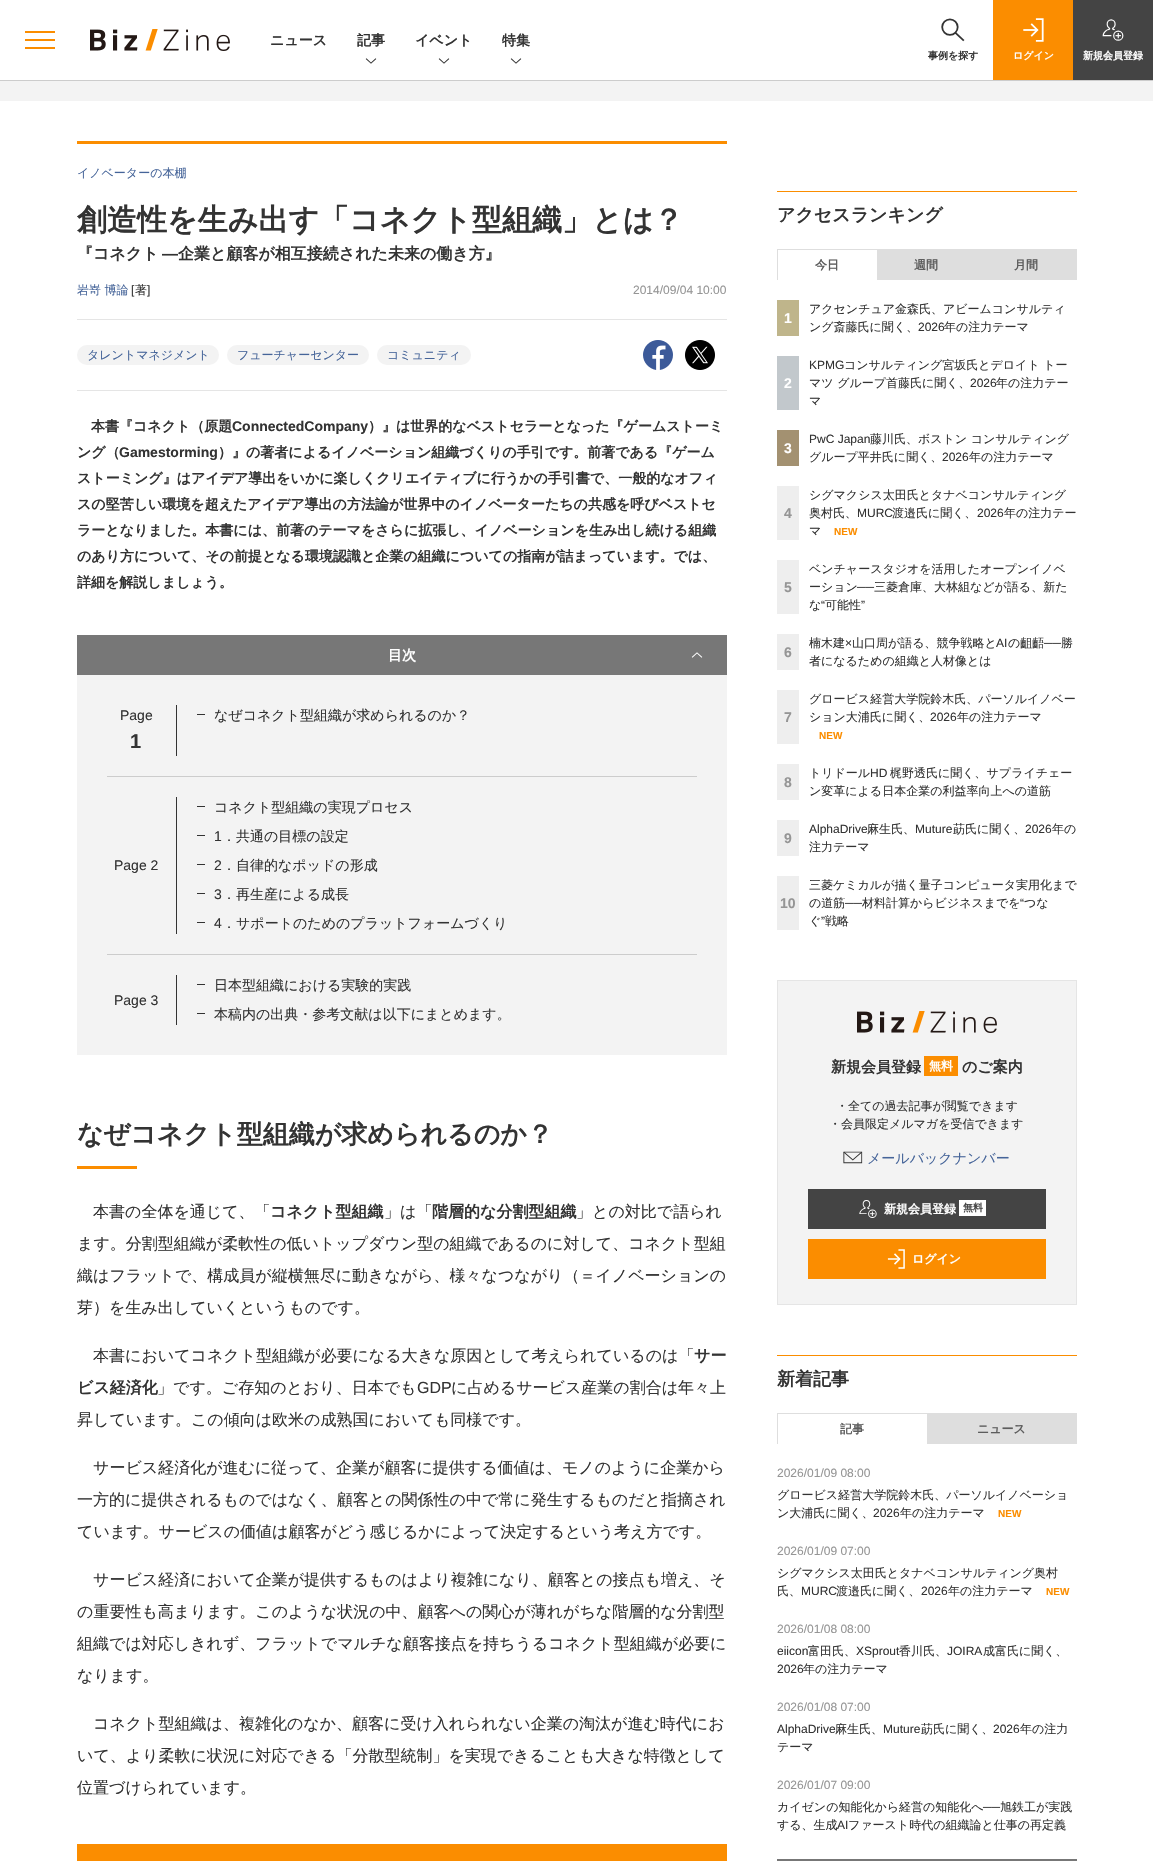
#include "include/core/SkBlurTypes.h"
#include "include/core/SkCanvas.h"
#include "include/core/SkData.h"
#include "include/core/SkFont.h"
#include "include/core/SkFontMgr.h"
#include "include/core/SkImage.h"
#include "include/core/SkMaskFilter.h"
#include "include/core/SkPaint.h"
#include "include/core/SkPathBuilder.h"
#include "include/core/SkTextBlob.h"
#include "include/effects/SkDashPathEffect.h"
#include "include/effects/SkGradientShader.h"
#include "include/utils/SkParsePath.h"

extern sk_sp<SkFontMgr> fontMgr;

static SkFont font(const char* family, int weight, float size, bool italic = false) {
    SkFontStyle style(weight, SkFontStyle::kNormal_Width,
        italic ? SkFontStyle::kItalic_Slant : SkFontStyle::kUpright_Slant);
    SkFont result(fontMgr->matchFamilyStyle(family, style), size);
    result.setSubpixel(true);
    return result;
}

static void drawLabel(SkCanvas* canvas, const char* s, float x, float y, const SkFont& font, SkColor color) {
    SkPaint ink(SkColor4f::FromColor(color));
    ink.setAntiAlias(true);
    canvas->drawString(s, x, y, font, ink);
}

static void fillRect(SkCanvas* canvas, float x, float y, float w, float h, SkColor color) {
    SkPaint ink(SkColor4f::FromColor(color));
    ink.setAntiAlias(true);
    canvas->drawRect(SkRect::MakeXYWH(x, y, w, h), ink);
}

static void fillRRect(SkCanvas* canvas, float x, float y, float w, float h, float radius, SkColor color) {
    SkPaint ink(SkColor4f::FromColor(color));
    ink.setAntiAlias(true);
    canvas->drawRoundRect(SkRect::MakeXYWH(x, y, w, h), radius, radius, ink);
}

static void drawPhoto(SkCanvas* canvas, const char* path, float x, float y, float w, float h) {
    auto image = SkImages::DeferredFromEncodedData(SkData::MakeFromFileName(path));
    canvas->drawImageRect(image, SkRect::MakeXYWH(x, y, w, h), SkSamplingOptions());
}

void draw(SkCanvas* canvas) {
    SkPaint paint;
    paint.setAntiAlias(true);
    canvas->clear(0xFFFFFFFF);
    fillRect(canvas, 0, 80, 1153, 1, 0xFFCCCCCC);
    fillRect(canvas, 25, 39, 30, 2, 0xFFFB8D00);
    fillRect(canvas, 25, 31, 30, 2, 0xFFFB8D00);
    fillRect(canvas, 25, 47, 30, 2, 0xFFFB8D00);
    drawPhoto(canvas, "assets/img1.png", 90, 29, 140, 22);
    SkFont font1 = font("WenQuanYi Zen Hei", 700, 14);
    drawLabel(canvas, "ニュース", 270, 45, font1, 0xFF333333);
    drawLabel(canvas, "記事", 357, 45, font1, 0xFF333333);
    drawPhoto(canvas, "assets/img2.png", 365, 58, 12, 6);
    drawLabel(canvas, "イベント", 415, 45, font1, 0xFF333333);
    drawPhoto(canvas, "assets/img2.png", 438, 58, 12, 6);
    drawLabel(canvas, "特集", 502, 45, font1, 0xFF333333);
    drawPhoto(canvas, "assets/img2.png", 510, 58, 12, 6);
    drawPhoto(canvas, "assets/img3.png", 941, 18, 24, 24);
    SkFont font2 = font("WenQuanYi Zen Hei", 700, 10);
    drawLabel(canvas, "事例を探す", 928, 59, font2, 0xFF333333);
    fillRect(canvas, 993, 0, 80, 80, 0xFFFB8D00);
    drawPhoto(canvas, "assets/img4.png", 1023, 18, 21, 24);
    drawLabel(canvas, "ログイン", 1013, 59, font2, 0xFFFFFFFF);
    fillRect(canvas, 1073, 0, 80, 80, 0xFF444444);
    drawPhoto(canvas, "assets/img5.png", 1102, 19, 22, 22);
    drawLabel(canvas, "新規会員登録", 1083, 59, font2, 0xFFFFFFFF);
    fillRect(canvas, 0, 81, 1153, 20, 0xFFF3F3F3);
    fillRect(canvas, 77, 141, 650, 3, 0xFFFB8D00);
    fillRect(canvas, 77, 390, 650, 1, 0xFFE5E5E5);
    SkFont font3 = font("WenQuanYi Zen Hei", 500, 12);
    drawLabel(canvas, "イノベーターの本棚", 77, 177, font3, 0xFF456499);
    SkFont font4 = font("WenQuanYi Zen Hei", 700, 30);
    drawLabel(canvas, "創造性を生み出す「コネクト型組織」とは？", 77, 230, font4, 0xFF333333);
    SkFont font5 = font("WenQuanYi Zen Hei", 700, 16);
    drawLabel(canvas, "『コネクト", 77, 259, font5, 0xFF333333);
    SkFont font6 = font("Liberation Sans", 700, 16);
    drawLabel(canvas, "―", 162, 259, font6, 0xFF333333);
    drawLabel(canvas, "企業と顧客が相互接続された未来の働き方』", 178, 259, font5, 0xFF333333);
    drawLabel(canvas, "岩嵜 博論", 77, 294, font3, 0xFF456499);
    SkFont font7 = font("Liberation Sans", 400, 12);
    drawLabel(canvas, "[", 131, 294, font7, 0xFF333333);
    drawLabel(canvas, "著", 135, 294, font3, 0xFF333333);
    drawLabel(canvas, "]", 147, 294, font7, 0xFF333333);
    drawLabel(canvas, "2014/09/04 10:00", 633, 294, font7, 0xFF959595);
    fillRect(canvas, 77, 319, 650, 1, 0xFFE5E5E5);
    fillRRect(canvas, 77, 345, 142, 20, 10, 0xFFF3F3F3);
    drawLabel(canvas, "タレントマネジメント", 87, 359, font3, 0xFF456499);
    fillRRect(canvas, 227, 345, 142, 20, 10, 0xFFF3F3F3);
    drawLabel(canvas, "フューチャーセンター", 237, 359, font3, 0xFF456499);
    fillRRect(canvas, 377, 345, 94, 20, 10, 0xFFF3F3F3);
    drawLabel(canvas, "コミュニティ", 387, 359, font3, 0xFF456499);
    drawPhoto(canvas, "assets/img6.png", 643, 340, 30, 30);
    drawPhoto(canvas, "assets/img7.png", 685, 340, 30, 30);
    drawLabel(canvas, "本書『コネクト（原題", 91, 431, font1, 0xFF333333);
    SkFont font8 = font("Liberation Sans", 700, 14);
    drawLabel(canvas, "ConnectedCompany", 232, 431, font8, 0xFF333333);
    drawLabel(canvas, "）』は世界的なベストセラーとなった『ゲームストーミ", 368, 431, font1, 0xFF333333);
    drawLabel(canvas, "ング（", 77, 457, font1, 0xFF333333);
    drawLabel(canvas, "Gamestorming", 119, 457, font8, 0xFF333333);
    drawLabel(canvas, "）』の著者によるイノベーション組織づくりの手引です。前著である『ゲーム", 218, 457, font1, 0xFF333333);
    drawLabel(canvas, "ストーミング』はアイデア導出をいかに楽しくクリエイティブに行うかの手引書で、一般的なオフィ", 77, 483, font1, 0xFF333333);
    drawLabel(canvas, "スの堅苦しい環境を超えたアイデア導出の方法論が世界中のイノベーターたちの共感を呼びベストセ", 77, 509, font1, 0xFF333333);
    drawLabel(canvas, "ラーとなりました。本書には、前著のテーマをさらに拡張し、イノベーションを生み出し続ける組織", 77, 535, font1, 0xFF333333);
    drawLabel(canvas, "のあり方について、その前提となる環境認識と企業の組織についての指南が詰まっています。では、", 77, 561, font1, 0xFF333333);
    drawLabel(canvas, "詳細を解説しましょう。", 77, 587, font1, 0xFF333333);
    fillRect(canvas, 77, 635, 650, 40, 0xFF777777);
    drawLabel(canvas, "目次", 388, 660, font1, 0xFFFFFFFF);
    drawPhoto(canvas, "assets/img8.png", 691, 652, 12, 6);
    fillRect(canvas, 77, 675, 650, 380, 0xFFF3F3F3);
    fillRect(canvas, 176, 705, 1, 51, 0xFF333333);
    SkFont font9 = font("Liberation Sans", 400, 14);
    drawLabel(canvas, "Page", 120, 720, font9, 0xFF333333);
    SkFont font10 = font("Liberation Sans", 700, 20);
    drawLabel(canvas, "1", 130, 748, font10, 0xFF333333);
    fillRect(canvas, 197, 714, 8, 1, 0xFF333333);
    SkFont font11 = font("WenQuanYi Zen Hei", 500, 14);
    drawLabel(canvas, "なぜコネクト型組織が求められるのか？", 214, 720, font11, 0xFF333333);
    fillRect(canvas, 107, 776, 590, 1, 0xFFCCCCCC);
    fillRect(canvas, 176, 797, 1, 137, 0xFF333333);
    drawLabel(canvas, "Page 2", 114, 870, font9, 0xFF333333);
    fillRect(canvas, 197, 806, 8, 1, 0xFF333333);
    drawLabel(canvas, "コネクト型組織の実現プロセス", 214, 812, font11, 0xFF333333);
    fillRect(canvas, 197, 835, 8, 1, 0xFF333333);
    drawLabel(canvas, "1", 214, 841, font9, 0xFF333333);
    drawLabel(canvas, "．共通の目標の設定", 222, 841, font11, 0xFF333333);
    fillRect(canvas, 197, 864, 8, 1, 0xFF333333);
    drawLabel(canvas, "2", 214, 870, font9, 0xFF333333);
    drawLabel(canvas, "．自律的なポッドの形成", 222, 870, font11, 0xFF333333);
    fillRect(canvas, 197, 893, 8, 1, 0xFF333333);
    drawLabel(canvas, "3", 214, 899, font9, 0xFF333333);
    drawLabel(canvas, "．再生産による成長", 222, 899, font11, 0xFF333333);
    fillRect(canvas, 197, 922, 8, 1, 0xFF333333);
    drawLabel(canvas, "4", 214, 928, font9, 0xFF333333);
    drawLabel(canvas, "．サポートのためのプラットフォームづくり", 222, 928, font11, 0xFF333333);
    fillRect(canvas, 107, 954, 590, 1, 0xFFCCCCCC);
    fillRect(canvas, 176, 975, 1, 50, 0xFF333333);
    drawLabel(canvas, "Page 3", 114, 1005, font9, 0xFF333333);
    fillRect(canvas, 197, 984, 8, 1, 0xFF333333);
    drawLabel(canvas, "日本型組織における実験的実践", 214, 990, font11, 0xFF333333);
    fillRect(canvas, 197, 1013, 8, 1, 0xFF333333);
    drawLabel(canvas, "本稿内の出典・参考文献は以下にまとめます。", 214, 1019, font11, 0xFF333333);
    SkFont font12 = font("WenQuanYi Zen Hei", 700, 26);
    drawLabel(canvas, "なぜコネクト型組織が求められるのか？", 77, 1143, font12, 0xFF333333);
    fillRect(canvas, 77, 1166, 60, 3, 0xFFFB8D00);
    SkFont font13 = font("WenQuanYi Zen Hei", 500, 16);
    drawLabel(canvas, "本書の全体を通じて、「", 93, 1217, font13, 0xFF333333);
    drawLabel(canvas, "コネクト型組織", 270, 1217, font5, 0xFF333333);
    drawLabel(canvas, "」は「", 384, 1217, font13, 0xFF333333);
    drawLabel(canvas, "階層的な分割型組織", 432, 1217, font5, 0xFF333333);
    drawLabel(canvas, "」との対比で語られ", 576, 1217, font13, 0xFF333333);
    drawLabel(canvas, "ます。分割型組織が柔軟性の低いトップダウン型の組織であるのに対して、コネクト型組", 77, 1249, font13, 0xFF333333);
    drawLabel(canvas, "織はフラットで、構成員が縦横無尽に動きながら、様々なつながり（＝イノベーションの", 77, 1281, font13, 0xFF333333);
    drawLabel(canvas, "芽）を生み出していくというものです。", 77, 1313, font13, 0xFF333333);
    drawLabel(canvas, "本書においてコネクト型組織が必要になる大きな原因として考えられているのは「", 93, 1361, font13, 0xFF333333);
    drawLabel(canvas, "サー", 694, 1361, font5, 0xFF333333);
    drawLabel(canvas, "ビス経済化", 77, 1393, font5, 0xFF333333);
    drawLabel(canvas, "」です。ご存知のとおり、日本でも", 157, 1393, font13, 0xFF333333);
    SkFont font14 = font("Liberation Sans", 400, 16);
    drawLabel(canvas, "GDP", 417, 1393, font14, 0xFF333333);
    drawLabel(canvas, "に占めるサービス産業の割合は年々上", 451, 1393, font13, 0xFF333333);
    drawLabel(canvas, "昇しています。この傾向は欧米の成熟国においても同様です。", 77, 1425, font13, 0xFF333333);
    drawLabel(canvas, "サービス経済化が進むに従って、企業が顧客に提供する価値は、モノのように企業から", 93, 1473, font13, 0xFF333333);
    drawLabel(canvas, "一方的に提供されるものではなく、顧客との関係性の中で常に発生するものだと指摘され", 77, 1505, font13, 0xFF333333);
    drawLabel(canvas, "ています。サービスの価値は顧客がどう感じるかによって決定するという考え方です。", 77, 1537, font13, 0xFF333333);
    drawLabel(canvas, "サービス経済において企業が提供するものはより複雑になり、顧客との接点も増え、そ", 93, 1585, font13, 0xFF333333);
    drawLabel(canvas, "の重要性も高まります。このような状況の中、顧客への関心が薄れがちな階層的な分割型", 77, 1617, font13, 0xFF333333);
    drawLabel(canvas, "組織では対応しきれず、フラットでマルチな顧客接点を持ちうるコネクト型組織が必要に", 77, 1649, font13, 0xFF333333);
    drawLabel(canvas, "なります。", 77, 1681, font13, 0xFF333333);
    drawLabel(canvas, "コネクト型組織は、複雑化のなか、顧客に受け入れられない企業の淘汰が進む時代にお", 93, 1729, font13, 0xFF333333);
    drawLabel(canvas, "いて、より柔軟に状況に対応できる「分散型統制」を実現できることも大きな特徴として", 77, 1761, font13, 0xFF333333);
    drawLabel(canvas, "位置づけられています。", 77, 1793, font13, 0xFF333333);
    fillRect(canvas, 77, 1844, 650, 17, 0xFFFB8D00);
    fillRect(canvas, 777, 191, 300, 1, 0xFFFB8D00);
    SkFont font15 = font("WenQuanYi Zen Hei", 700, 18);
    drawLabel(canvas, "アクセスランキング", 777, 221, font15, 0xFF333333);
    fillRect(canvas, 777, 249, 300, 31, 0xFFDEDEDE);
    fillRect(canvas, 778, 250, 99, 30, 0xFFFFFFFF);
    SkFont font16 = font("WenQuanYi Zen Hei", 700, 12);
    drawLabel(canvas, "今日", 815, 269, font16, 0xFF5D5D5D);
    drawLabel(canvas, "週間", 914, 269, font16, 0xFF5D5D5D);
    drawLabel(canvas, "月間", 1014, 269, font16, 0xFF5D5D5D);
    fillRect(canvas, 777, 300, 22, 36, 0xFFBFB58B);
    drawLabel(canvas, "1", 784, 323, font8, 0xFFFFFFFF);
    drawLabel(canvas, "アクセンチュア金森氏、アビームコンサルティ", 809, 313, font3, 0xFF333333);
    drawLabel(canvas, "ング斎藤氏に聞く、", 809, 331, font3, 0xFF333333);
    drawLabel(canvas, "2026", 918, 331, font7, 0xFF333333);
    drawLabel(canvas, "年の注力テーマ", 944, 331, font3, 0xFF333333);
    fillRect(canvas, 777, 356, 22, 54, 0xFFC2C8CC);
    drawLabel(canvas, "2", 784, 388, font8, 0xFFFFFFFF);
    drawLabel(canvas, "KPMG", 809, 369, font7, 0xFF333333);
    drawLabel(canvas, "コンサルティング宮坂氏とデロイト トー", 844, 369, font3, 0xFF333333);
    drawLabel(canvas, "マツ グループ首藤氏に聞く、", 809, 387, font3, 0xFF333333);
    drawLabel(canvas, "2026", 970, 387, font7, 0xFF333333);
    drawLabel(canvas, "年の注力テー", 996, 387, font3, 0xFF333333);
    drawLabel(canvas, "マ", 809, 405, font3, 0xFF333333);
    fillRect(canvas, 777, 430, 22, 36, 0xFFA39171);
    drawLabel(canvas, "3", 784, 453, font8, 0xFFFFFFFF);
    drawLabel(canvas, "PwC Japan", 809, 443, font7, 0xFF333333);
    drawLabel(canvas, "藤川氏、ボストン コンサルティング", 870, 443, font3, 0xFF333333);
    drawLabel(canvas, "グループ平井氏に聞く、", 809, 461, font3, 0xFF333333);
    drawLabel(canvas, "2026", 942, 461, font7, 0xFF333333);
    drawLabel(canvas, "年の注力テーマ", 969, 461, font3, 0xFF333333);
    fillRect(canvas, 777, 486, 22, 54, 0xFFEEEEEE);
    drawLabel(canvas, "4", 784, 518, font8, 0xFF959595);
    drawLabel(canvas, "シグマクシス太田氏とタナベコンサルティング", 809, 499, font3, 0xFF333333);
    drawLabel(canvas, "奥村氏、", 809, 517, font3, 0xFF333333);
    drawLabel(canvas, "MURC", 857, 517, font7, 0xFF333333);
    drawLabel(canvas, "渡邉氏に聞く、", 892, 517, font3, 0xFF333333);
    drawLabel(canvas, "2026", 977, 517, font7, 0xFF333333);
    drawLabel(canvas, "年の注力テー", 1004, 517, font3, 0xFF333333);
    drawLabel(canvas, "マ", 809, 535, font3, 0xFF333333);
    SkFont font17 = font("Liberation Sans", 700, 10);
    drawLabel(canvas, "NEW", 834, 535, font17, 0xFFFB8D00);
    fillRect(canvas, 777, 560, 22, 54, 0xFFEEEEEE);
    drawLabel(canvas, "5", 784, 592, font8, 0xFF959595);
    drawLabel(canvas, "ベンチャースタジオを活用したオープンイノベ", 809, 573, font3, 0xFF333333);
    drawLabel(canvas, "ーション", 809, 591, font3, 0xFF333333);
    drawLabel(canvas, "──", 857, 591, font7, 0xFF333333);
    drawLabel(canvas, "三菱倉庫、大林組などが語る、新た", 874, 591, font3, 0xFF333333);
    drawLabel(canvas, "な", 809, 609, font3, 0xFF333333);
    drawLabel(canvas, "“", 821, 609, font7, 0xFF333333);
    drawLabel(canvas, "可能性", 825, 609, font3, 0xFF333333);
    drawLabel(canvas, "”", 861, 609, font7, 0xFF333333);
    fillRect(canvas, 777, 634, 22, 36, 0xFFEEEEEE);
    drawLabel(canvas, "6", 784, 657, font8, 0xFF959595);
    drawLabel(canvas, "楠木建", 809, 647, font3, 0xFF333333);
    drawLabel(canvas, "×", 845, 647, font7, 0xFF333333);
    drawLabel(canvas, "山口周が語る、競争戦略と", 852, 647, font3, 0xFF333333);
    drawLabel(canvas, "AI", 996, 647, font7, 0xFF333333);
    drawLabel(canvas, "の齟齬", 1008, 647, font3, 0xFF333333);
    drawLabel(canvas, "──", 1044, 647, font7, 0xFF333333);
    drawLabel(canvas, "勝", 1061, 647, font3, 0xFF333333);
    drawLabel(canvas, "者になるための組織と人材像とは", 809, 665, font3, 0xFF333333);
    fillRect(canvas, 777, 690, 22, 54, 0xFFEEEEEE);
    drawLabel(canvas, "7", 784, 722, font8, 0xFF959595);
    drawLabel(canvas, "グロービス経営大学院鈴木氏、パーソルイノベー", 809, 703, font3, 0xFF333333);
    drawLabel(canvas, "ション大浦氏に聞く、", 809, 721, font3, 0xFF333333);
    drawLabel(canvas, "2026", 930, 721, font7, 0xFF333333);
    drawLabel(canvas, "年の注力テーマ", 957, 721, font3, 0xFF333333);
    drawLabel(canvas, "NEW", 819, 739, font17, 0xFFFB8D00);
    fillRect(canvas, 777, 764, 22, 36, 0xFFEEEEEE);
    drawLabel(canvas, "8", 784, 787, font8, 0xFF959595);
    drawLabel(canvas, "トリドール", 809, 777, font3, 0xFF333333);
    drawLabel(canvas, "HD", 870, 777, font7, 0xFF333333);
    drawLabel(canvas, "梶野透氏に聞く、サプライチェー", 890, 777, font3, 0xFF333333);
    drawLabel(canvas, "ン変革による日本企業の利益率向上への道筋", 809, 795, font3, 0xFF333333);
    fillRect(canvas, 777, 820, 22, 36, 0xFFEEEEEE);
    drawLabel(canvas, "9", 784, 843, font8, 0xFF959595);
    drawLabel(canvas, "AlphaDrive", 809, 833, font7, 0xFF333333);
    drawLabel(canvas, "麻生氏、", 867, 833, font3, 0xFF333333);
    drawLabel(canvas, "Muture", 915, 833, font7, 0xFF333333);
    drawLabel(canvas, "莇氏に聞く、", 953, 833, font3, 0xFF333333);
    drawLabel(canvas, "2026", 1025, 833, font7, 0xFF333333);
    drawLabel(canvas, "年の", 1052, 833, font3, 0xFF333333);
    drawLabel(canvas, "注力テーマ", 809, 851, font3, 0xFF333333);
    fillRect(canvas, 777, 876, 22, 54, 0xFFEEEEEE);
    drawLabel(canvas, "10", 780, 908, font8, 0xFF959595);
    drawLabel(canvas, "三菱ケミカルが描く量子コンピュータ実用化まで", 809, 889, font3, 0xFF333333);
    drawLabel(canvas, "の道筋", 809, 907, font3, 0xFF333333);
    drawLabel(canvas, "──", 845, 907, font7, 0xFF333333);
    drawLabel(canvas, "材料計算からビジネスまでを", 862, 907, font3, 0xFF333333);
    drawLabel(canvas, "“", 1020, 907, font7, 0xFF333333);
    drawLabel(canvas, "つな", 1024, 907, font3, 0xFF333333);
    drawLabel(canvas, "ぐ", 809, 925, font3, 0xFF333333);
    drawLabel(canvas, "”", 821, 925, font7, 0xFF333333);
    drawLabel(canvas, "戦略", 825, 925, font3, 0xFF333333);
    paint.setColor(0xFFF3F3F3);
    canvas->drawRect(SkRect::MakeXYWH(777.5f, 980.5f, 299, 324), paint);
    paint.setStroke(true);
    paint.setStrokeWidth(1);
    paint.setColor(0xFFE5E5E5);
    canvas->drawRect(SkRect::MakeXYWH(777.5f, 980.5f, 299, 324), paint);
    drawPhoto(canvas, "assets/img9.png", 857, 1011, 140, 22);
    SkFont font18 = font("WenQuanYi Zen Hei", 700, 15);
    drawLabel(canvas, "新規会員登録", 831, 1072, font18, 0xFF333333);
    fillRect(canvas, 924, 1056, 34, 20, 0xFFFB8D00);
    drawLabel(canvas, "無料", 929, 1070, font16, 0xFFFFFFFF);
    drawLabel(canvas, "のご案内", 962, 1072, font18, 0xFF333333);
    drawLabel(canvas, "・全ての過去記事が閲覧できます", 836, 1110, font3, 0xFF333333);
    drawLabel(canvas, "・会員限定メルマガを受信できます", 829, 1128, font3, 0xFF333333);
    drawPhoto(canvas, "assets/img10.png", 843, 1151, 20, 13);
    drawLabel(canvas, "メールバックナンバー", 867, 1163, font11, 0xFF456499);
    fillRect(canvas, 808, 1189, 238, 40, 0xFF444444);
    drawPhoto(canvas, "assets/img11.png", 859, 1200, 18, 18);
    drawLabel(canvas, "新規会員登録", 884, 1213, font16, 0xFFFFFFFF);
    fillRect(canvas, 959, 1200, 27, 16, 0xFFFFFFFF);
    drawLabel(canvas, "無料", 963, 1211, font2, 0xFF444444);
    fillRect(canvas, 808, 1239, 238, 40, 0xFFFB8D00);
    drawPhoto(canvas, "assets/img12.png", 887, 1249, 18, 20);
    drawLabel(canvas, "ログイン", 912, 1263, font16, 0xFFFFFFFF);
    fillRect(canvas, 777, 1355, 300, 1, 0xFFFB8D00);
    drawLabel(canvas, "新着記事", 777, 1385, font15, 0xFF333333);
    fillRect(canvas, 777, 1413, 300, 31, 0xFFDEDEDE);
    fillRect(canvas, 778, 1414, 149, 30, 0xFFFFFFFF);
    drawLabel(canvas, "記事", 840, 1433, font16, 0xFF5D5D5D);
    drawLabel(canvas, "ニュース", 977, 1433, font16, 0xFF5D5D5D);
    drawLabel(canvas, "2026/01/09 08:00", 777, 1477, font7, 0xFF959595);
    drawLabel(canvas, "グロービス経営大学院鈴木氏、パーソルイノベーショ", 777, 1499, font3, 0xFF333333);
    drawLabel(canvas, "ン大浦氏に聞く、", 777, 1517, font3, 0xFF333333);
    drawLabel(canvas, "2026", 873, 1517, font7, 0xFF333333);
    drawLabel(canvas, "年の注力テーマ", 900, 1517, font3, 0xFF333333);
    drawLabel(canvas, "NEW", 998, 1517, font17, 0xFFFB8D00);
    drawLabel(canvas, "2026/01/09 07:00", 777, 1555, font7, 0xFF959595);
    drawLabel(canvas, "シグマクシス太田氏とタナベコンサルティング奥村", 777, 1577, font3, 0xFF333333);
    drawLabel(canvas, "氏、", 777, 1595, font3, 0xFF333333);
    drawLabel(canvas, "MURC", 801, 1595, font7, 0xFF333333);
    drawLabel(canvas, "渡邉氏に聞く、", 836, 1595, font3, 0xFF333333);
    drawLabel(canvas, "2026", 921, 1595, font7, 0xFF333333);
    drawLabel(canvas, "年の注力テーマ", 948, 1595, font3, 0xFF333333);
    drawLabel(canvas, "NEW", 1046, 1595, font17, 0xFFFB8D00);
    drawLabel(canvas, "2026/01/08 08:00", 777, 1633, font7, 0xFF959595);
    drawLabel(canvas, "eiicon", 777, 1655, font7, 0xFF333333);
    drawLabel(canvas, "富田氏、", 808, 1655, font3, 0xFF333333);
    drawLabel(canvas, "XSprout", 856, 1655, font7, 0xFF333333);
    drawLabel(canvas, "香川氏、", 899, 1655, font3, 0xFF333333);
    drawLabel(canvas, "JOIRA", 947, 1655, font7, 0xFF333333);
    drawLabel(canvas, "成富氏に聞く、", 983, 1655, font3, 0xFF333333);
    drawLabel(canvas, "2026", 777, 1673, font7, 0xFF333333);
    drawLabel(canvas, "年の注力テーマ", 803, 1673, font3, 0xFF333333);
    drawLabel(canvas, "2026/01/08 07:00", 777, 1711, font7, 0xFF959595);
    drawLabel(canvas, "AlphaDrive", 777, 1733, font7, 0xFF333333);
    drawLabel(canvas, "麻生氏、", 835, 1733, font3, 0xFF333333);
    drawLabel(canvas, "Muture", 883, 1733, font7, 0xFF333333);
    drawLabel(canvas, "莇氏に聞く、", 921, 1733, font3, 0xFF333333);
    drawLabel(canvas, "2026", 993, 1733, font7, 0xFF333333);
    drawLabel(canvas, "年の注力", 1020, 1733, font3, 0xFF333333);
    drawLabel(canvas, "テーマ", 777, 1751, font3, 0xFF333333);
    drawLabel(canvas, "2026/01/07 09:00", 777, 1789, font7, 0xFF959595);
    drawLabel(canvas, "カイゼンの知能化から経営の知能化へ", 777, 1811, font3, 0xFF333333);
    drawLabel(canvas, "──", 983, 1811, font7, 0xFF333333);
    drawLabel(canvas, "旭鉄工が実践", 1000, 1811, font3, 0xFF333333);
    drawLabel(canvas, "する、生成", 777, 1829, font3, 0xFF333333);
    drawLabel(canvas, "AI", 837, 1829, font7, 0xFF333333);
    drawLabel(canvas, "ファースト時代の組織論と仕事の再定義", 848, 1829, font3, 0xFF333333);
    fillRect(canvas, 777, 1859, 300, 2, 0xFF777777);
}
